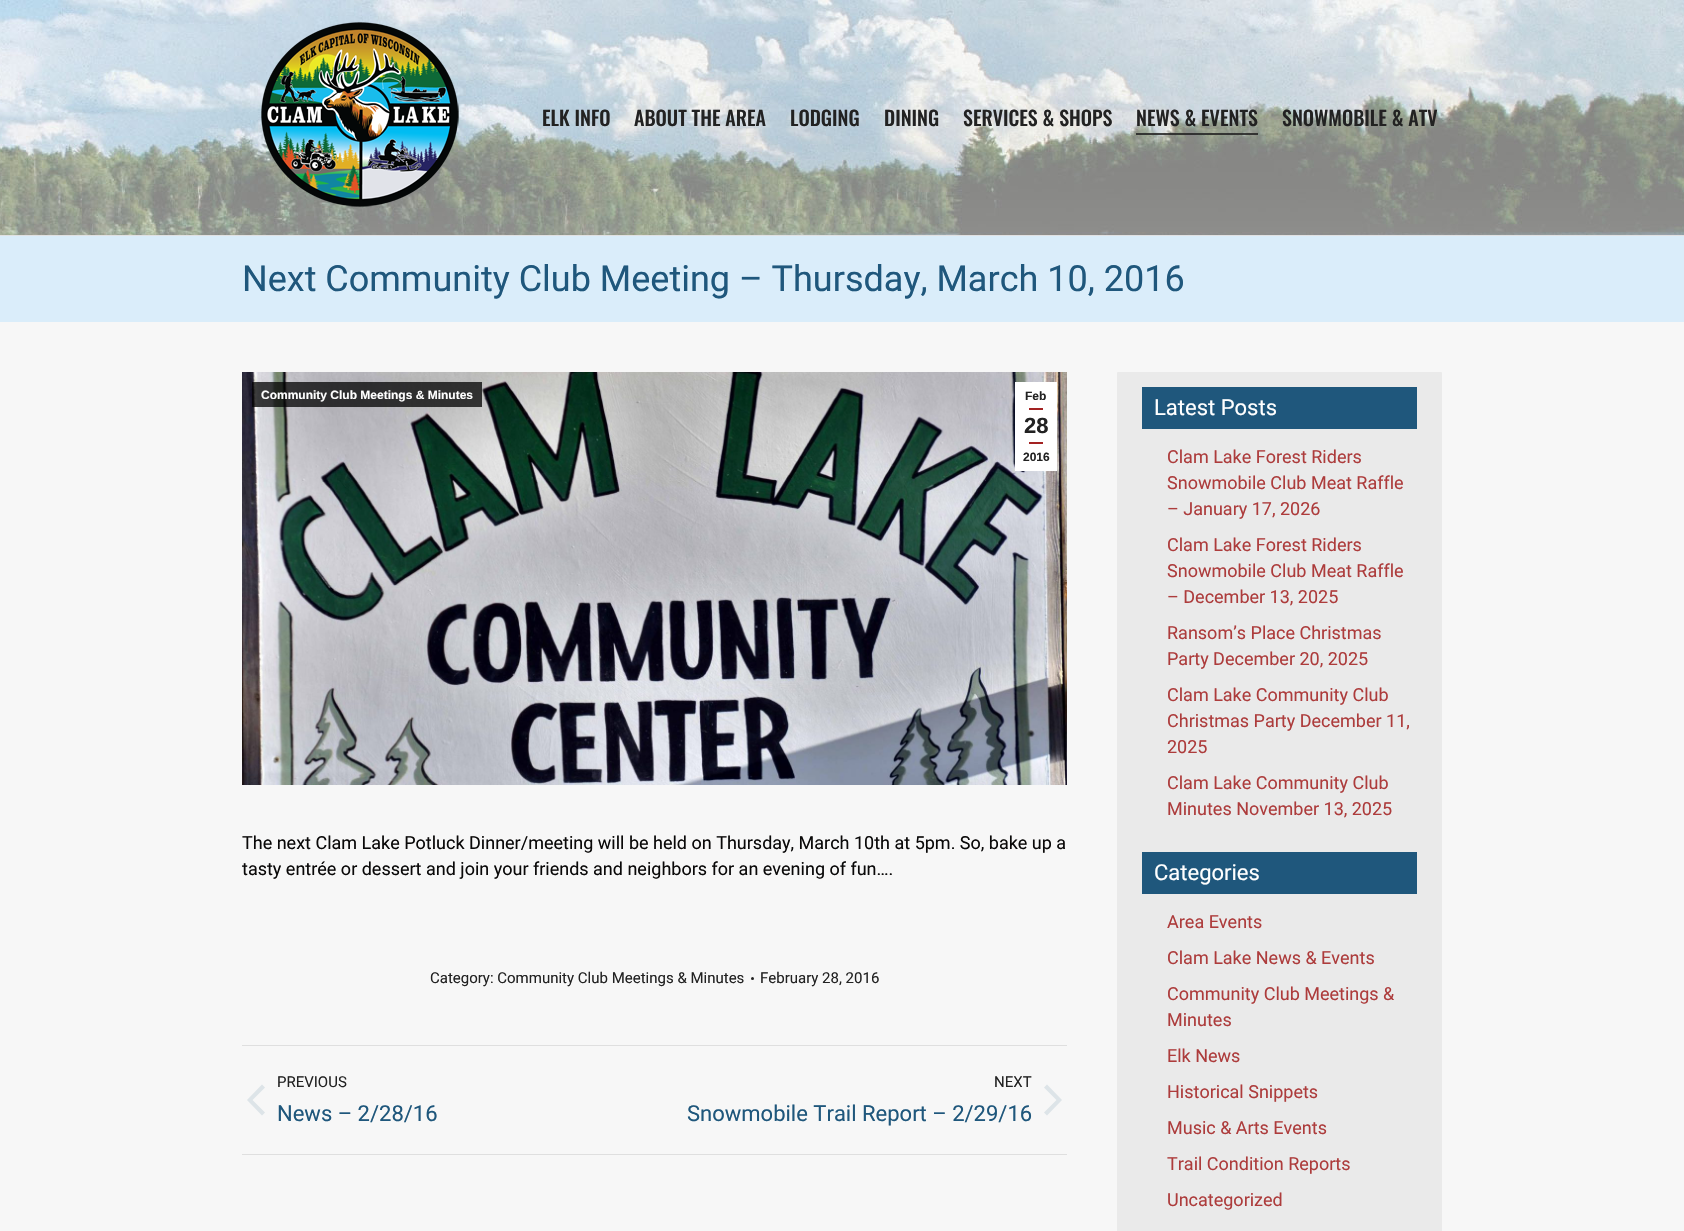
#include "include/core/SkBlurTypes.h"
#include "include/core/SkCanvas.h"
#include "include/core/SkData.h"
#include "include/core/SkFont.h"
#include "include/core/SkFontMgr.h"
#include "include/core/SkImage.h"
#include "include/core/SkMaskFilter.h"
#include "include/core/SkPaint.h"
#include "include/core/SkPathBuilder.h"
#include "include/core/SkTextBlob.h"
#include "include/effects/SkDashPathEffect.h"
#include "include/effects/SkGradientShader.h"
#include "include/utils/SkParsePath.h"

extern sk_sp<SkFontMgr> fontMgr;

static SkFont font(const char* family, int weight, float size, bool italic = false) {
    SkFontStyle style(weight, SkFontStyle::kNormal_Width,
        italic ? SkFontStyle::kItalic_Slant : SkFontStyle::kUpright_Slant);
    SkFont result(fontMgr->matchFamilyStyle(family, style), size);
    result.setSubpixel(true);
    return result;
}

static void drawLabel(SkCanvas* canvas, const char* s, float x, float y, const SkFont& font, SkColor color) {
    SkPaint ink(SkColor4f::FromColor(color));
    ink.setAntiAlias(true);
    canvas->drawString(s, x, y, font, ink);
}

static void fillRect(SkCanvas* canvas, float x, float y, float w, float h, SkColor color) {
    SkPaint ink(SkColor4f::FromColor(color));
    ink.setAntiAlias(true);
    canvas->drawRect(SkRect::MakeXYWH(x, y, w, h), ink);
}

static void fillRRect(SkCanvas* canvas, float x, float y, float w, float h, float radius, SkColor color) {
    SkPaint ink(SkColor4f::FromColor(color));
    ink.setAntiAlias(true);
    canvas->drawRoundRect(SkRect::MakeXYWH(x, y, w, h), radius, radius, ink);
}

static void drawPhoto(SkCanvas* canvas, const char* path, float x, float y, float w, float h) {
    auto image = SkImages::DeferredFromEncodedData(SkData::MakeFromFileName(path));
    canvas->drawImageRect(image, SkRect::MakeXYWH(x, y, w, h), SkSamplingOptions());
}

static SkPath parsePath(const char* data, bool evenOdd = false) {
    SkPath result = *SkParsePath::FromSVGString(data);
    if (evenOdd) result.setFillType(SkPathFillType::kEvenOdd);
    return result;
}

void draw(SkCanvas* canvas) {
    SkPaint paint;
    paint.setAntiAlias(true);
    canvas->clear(0xFFF7F7F7);
    drawPhoto(canvas, "assets/img1.png", 0, 0, 1684, 235);
    fillRect(canvas, 0, 235, 1684, 1, 0xFFE1E1E2);
    drawPhoto(canvas, "assets/img2.png", 261, 22, 198, 185);
    SkFont font1 = font("Oswald", 500, 20);
    drawLabel(canvas, "ELK INFO", 542, 126, font1, 0xFF222222);
    drawLabel(canvas, "ABOUT THE AREA", 634, 126, font1, 0xFF222222);
    drawLabel(canvas, "LODGING", 790, 126, font1, 0xFF222222);
    drawLabel(canvas, "DINING", 884, 126, font1, 0xFF222222);
    drawLabel(canvas, "SERVICES & SHOPS", 963, 126, font1, 0xFF222222);
    drawLabel(canvas, "NEWS & EVENTS", 1136, 126, font1, 0xFF222222);
    fillRect(canvas, 1136, 133, 122, 2, 0xD9222222);
    drawLabel(canvas, "SNOWMOBILE & ATV", 1282, 126, font1, 0xFF222222);
    fillRect(canvas, 0, 236, 1684, 86, 0xFFDAEDFA);
    SkFont font2 = font("Roboto", 400, 36);
    drawLabel(canvas, "Next Community Club Meeting – Thursday, March 10, 2016", 242, 291, font2, 0xFF1F577C);
    drawPhoto(canvas, "assets/img3.png", 242, 372, 825, 413);
    fillRect(canvas, 252, 382, 230, 25, 0xBF000000);
    SkFont font3 = font("Liberation Sans", 700, 12);
    drawLabel(canvas, "Community Club Meetings & Minutes", 261, 399, font3, 0xFFFFFFFF);
    fillRect(canvas, 1015, 382, 42, 89, 0xFFFFFFFF);
    drawLabel(canvas, "Feb", 1025, 400, font3, 0xFF222222);
    fillRect(canvas, 1029, 408, 14, 2, 0xFFA32222);
    SkFont font4 = font("Liberation Sans", 700, 22);
    drawLabel(canvas, "28", 1024, 433, font4, 0xFF222222);
    fillRect(canvas, 1029, 442, 14, 2, 0xFFA32222);
    drawLabel(canvas, "2016", 1023, 461, font3, 0xFF222222);
    SkFont font5 = font("Roboto", 400, 18);
    drawLabel(canvas, "The next Clam Lake Potluck Dinner/meeting will be held on Thursday, March 10th at 5pm. So, bake up a", 242, 849, font5, 0xFF0A0909);
    drawLabel(canvas, "tasty entrée or dessert and join your friends and neighbors for an evening of fun….", 242, 875, font5, 0xFF0A0909);
    SkFont font6 = font("Roboto", 400, 15);
    drawLabel(canvas, "Category: Community Club Meetings & Minutes", 430, 983, font6, 0xFF222222);
    paint.setColor(0xFF222222);
    canvas->drawCircle(752.5f, 978.5f, 1.5f, paint);
    drawLabel(canvas, "February 28, 2016", 760, 983, font6, 0xFF222222);
    fillRect(canvas, 242, 1045, 825, 1, 0xFFDFDFDF);
    fillRect(canvas, 242, 1154, 825, 1, 0xFFDFDFDF);
    drawLabel(canvas, "PREVIOUS", 277, 1087, font6, 0xFF222222);
    paint.setColor(0xFFDDE4E8);
    canvas->drawPath(parsePath("M252.5 1100L265 1087.5L262 1084.5L247 1100L262 1115.5L265 1112.5Z"), paint);
    SkFont font7 = font("Roboto", 400, 22);
    drawLabel(canvas, "News – 2/28/16", 277, 1121, font7, 0xFF1F577C);
    drawLabel(canvas, "NEXT", 994, 1087, font6, 0xFF222222);
    drawLabel(canvas, "Snowmobile Trail Report – 2/29/16", 687, 1121, font7, 0xFF1F577C);
    canvas->drawPath(parsePath("M1056.5 1100L1044 1087.5L1047 1084.5L1062 1100L1047 1115.5L1044 1112.5Z"), paint);
    fillRRect(canvas, 1117, 372, 325, 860, 1, 0xFFEAEAEA);
    fillRect(canvas, 1142, 387, 275, 42, 0xFF1F577C);
    drawLabel(canvas, "Latest Posts", 1154, 415, font7, 0xFFFFFFFF);
    drawLabel(canvas, "Clam Lake Forest Riders", 1167, 463, font5, 0xFFAD3C3C);
    drawLabel(canvas, "Snowmobile Club Meat Raffle", 1167, 489, font5, 0xFFAD3C3C);
    drawLabel(canvas, "– January 17, 2026", 1167, 515, font5, 0xFFAD3C3C);
    drawLabel(canvas, "Clam Lake Forest Riders", 1167, 551, font5, 0xFFAD3C3C);
    drawLabel(canvas, "Snowmobile Club Meat Raffle", 1167, 577, font5, 0xFFAD3C3C);
    drawLabel(canvas, "– December 13, 2025", 1167, 603, font5, 0xFFAD3C3C);
    drawLabel(canvas, "Ransom’s Place Christmas", 1167, 639, font5, 0xFFAD3C3C);
    drawLabel(canvas, "Party December 20, 2025", 1167, 665, font5, 0xFFAD3C3C);
    drawLabel(canvas, "Clam Lake Community Club", 1167, 701, font5, 0xFFAD3C3C);
    drawLabel(canvas, "Christmas Party December 11,", 1167, 727, font5, 0xFFAD3C3C);
    drawLabel(canvas, "2025", 1167, 753, font5, 0xFFAD3C3C);
    drawLabel(canvas, "Clam Lake Community Club", 1167, 789, font5, 0xFFAD3C3C);
    drawLabel(canvas, "Minutes November 13, 2025", 1167, 815, font5, 0xFFAD3C3C);
    fillRect(canvas, 1142, 852, 275, 42, 0xFF1F577C);
    drawLabel(canvas, "Categories", 1154, 880, font7, 0xFFFFFFFF);
    drawLabel(canvas, "Area Events", 1167, 928, font5, 0xFFAD3C3C);
    drawLabel(canvas, "Clam Lake News & Events", 1167, 964, font5, 0xFFAD3C3C);
    drawLabel(canvas, "Community Club Meetings &", 1167, 1000, font5, 0xFFAD3C3C);
    drawLabel(canvas, "Minutes", 1167, 1026, font5, 0xFFAD3C3C);
    drawLabel(canvas, "Elk News", 1167, 1062, font5, 0xFFAD3C3C);
    drawLabel(canvas, "Historical Snippets", 1167, 1098, font5, 0xFFAD3C3C);
    drawLabel(canvas, "Music & Arts Events", 1167, 1134, font5, 0xFFAD3C3C);
    drawLabel(canvas, "Trail Condition Reports", 1167, 1170, font5, 0xFFAD3C3C);
    drawLabel(canvas, "Uncategorized", 1167, 1206, font5, 0xFFAD3C3C);
}
